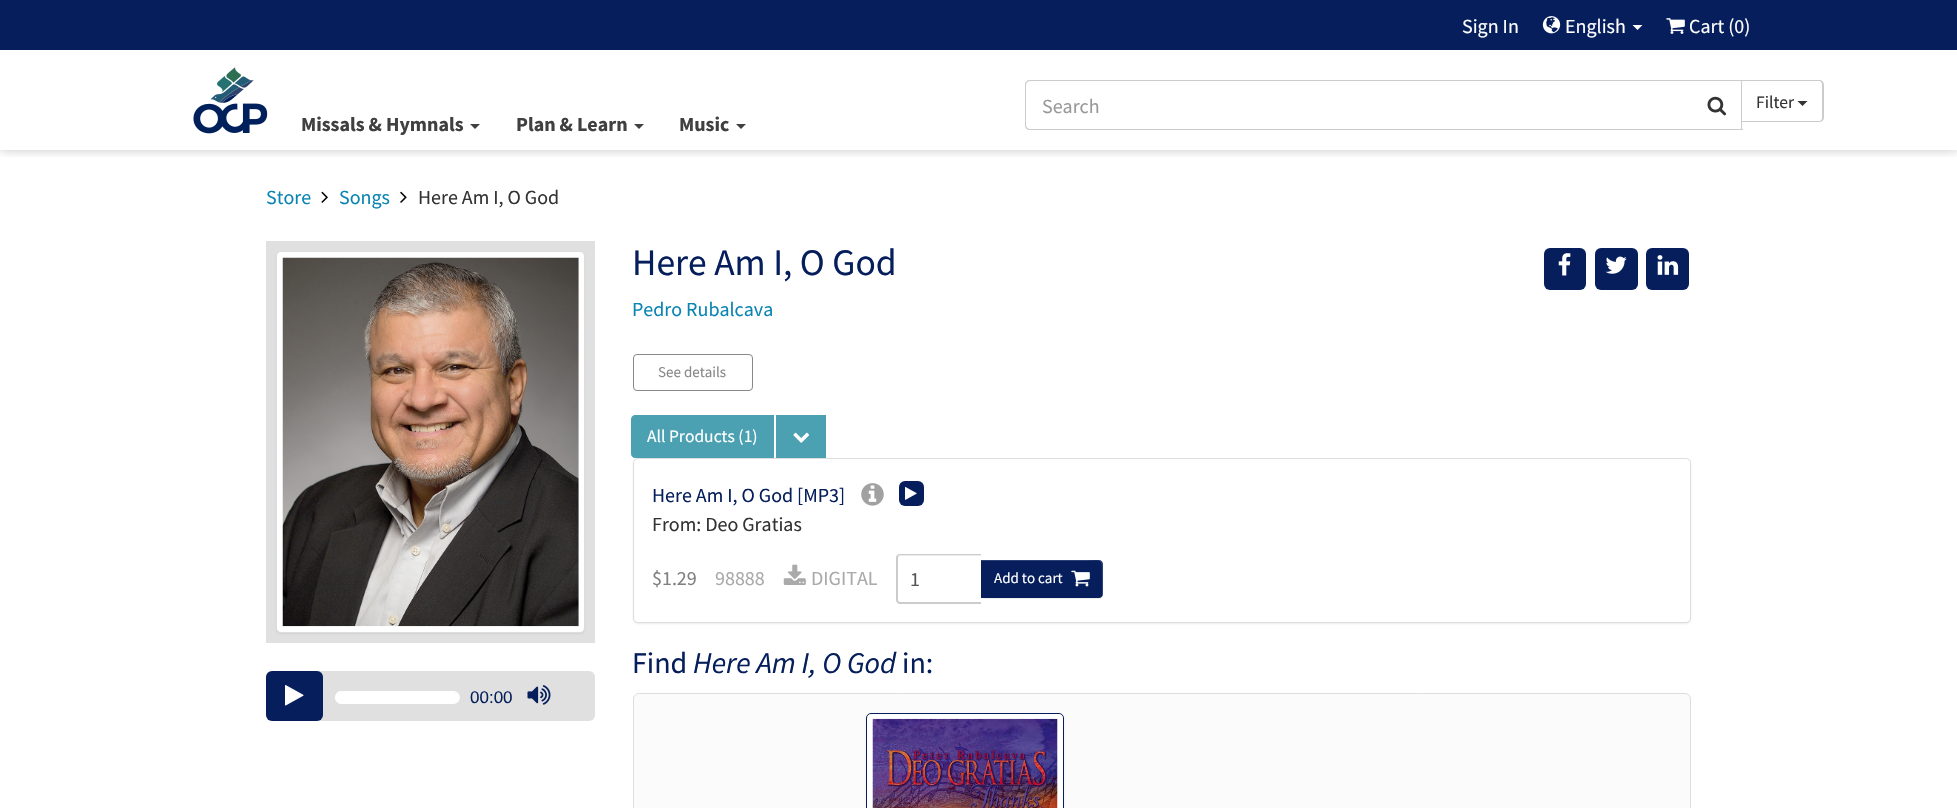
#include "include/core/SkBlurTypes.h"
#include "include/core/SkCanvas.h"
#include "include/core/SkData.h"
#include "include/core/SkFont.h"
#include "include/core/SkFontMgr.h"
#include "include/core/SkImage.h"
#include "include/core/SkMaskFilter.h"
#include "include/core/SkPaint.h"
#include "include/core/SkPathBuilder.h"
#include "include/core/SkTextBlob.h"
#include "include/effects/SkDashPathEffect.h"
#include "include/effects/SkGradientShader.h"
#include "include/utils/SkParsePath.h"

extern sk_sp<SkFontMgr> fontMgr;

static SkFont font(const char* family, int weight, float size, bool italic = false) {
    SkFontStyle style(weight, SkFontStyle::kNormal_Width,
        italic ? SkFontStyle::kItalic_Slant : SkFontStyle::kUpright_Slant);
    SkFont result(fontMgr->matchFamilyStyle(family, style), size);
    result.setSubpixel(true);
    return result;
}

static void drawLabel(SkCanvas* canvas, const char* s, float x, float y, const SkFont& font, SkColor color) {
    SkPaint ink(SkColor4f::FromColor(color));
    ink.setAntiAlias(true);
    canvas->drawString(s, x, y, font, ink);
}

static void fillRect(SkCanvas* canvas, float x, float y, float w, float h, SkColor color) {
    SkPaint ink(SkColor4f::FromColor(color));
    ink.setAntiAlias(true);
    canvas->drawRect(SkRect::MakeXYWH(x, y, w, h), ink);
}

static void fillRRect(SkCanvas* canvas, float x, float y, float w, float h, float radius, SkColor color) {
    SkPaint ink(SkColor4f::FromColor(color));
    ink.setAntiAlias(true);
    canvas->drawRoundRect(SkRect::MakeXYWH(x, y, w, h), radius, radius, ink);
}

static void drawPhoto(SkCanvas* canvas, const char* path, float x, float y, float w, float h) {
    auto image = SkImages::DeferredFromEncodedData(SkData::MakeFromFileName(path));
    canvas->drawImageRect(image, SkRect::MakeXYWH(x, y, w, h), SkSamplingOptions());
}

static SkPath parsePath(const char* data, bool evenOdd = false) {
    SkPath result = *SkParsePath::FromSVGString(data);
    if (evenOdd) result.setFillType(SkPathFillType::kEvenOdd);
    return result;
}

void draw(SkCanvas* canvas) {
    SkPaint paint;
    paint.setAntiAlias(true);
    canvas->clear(0xFFFFFFFF);
    canvas->save();
    canvas->clipRect(SkRect::MakeXYWH(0, 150, 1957, 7));
    paint.setColor(0x4D000000);
    paint.setMaskFilter(SkMaskFilter::MakeBlur(kNormal_SkBlurStyle, 6));
    canvas->drawRect(SkRect::MakeXYWH(0, 48, 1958, 100), paint);
    paint.setMaskFilter(nullptr);
    canvas->restore();
    fillRect(canvas, 0, 0, 1957, 50, 0xFF061F5C);
    SkFont font1 = font("Source Sans Pro", 400, 20);
    drawLabel(canvas, "Sign In", 1462, 33, font1, 0xFFFFFFFF);
    drawPhoto(canvas, "assets/img1.png", 1542, 16, 19, 18);
    drawLabel(canvas, "English", 1565, 33, font1, 0xFFFFFFFF);
    paint.setColor(0xFFFFFFFF);
    canvas->drawPath(parsePath("M1632.5 25H1642.5L1637.5 30Z"), paint);
    drawPhoto(canvas, "assets/img2.png", 1666, 18, 19, 16);
    drawLabel(canvas, "Cart (0)", 1689, 33, font1, 0xFFFFFFFF);
    paint.setColor(0xFFCCCCCC);
    canvas->drawPath(parsePath("M1030 80H1694V130H1030C1027 130 1025 128 1025 125V85C1025 82 1027 80 1030 80ZM1030 81H1694V129H1030C1028 129 1026 127 1026 125V85C1026 83 1028 81 1030 81Z", true), paint);
    drawLabel(canvas, "Search", 1042, 113, font1, 0xFF999999);
    fillRect(canvas, 1693, 80, 50, 1, 0xFFCCCCCC);
    fillRect(canvas, 1741, 80, 1, 50, 0xFFCCCCCC);
    fillRect(canvas, 1693, 129, 50, 1, 0xFFCCCCCC);
    drawPhoto(canvas, "assets/img3.png", 1707, 96, 19, 20);
    canvas->drawPath(parsePath("M1741 80H1819C1822 80 1824 82 1824 85V118C1824 120 1822 122 1819 122H1741ZM1741 81H1819C1821 81 1822 83 1822 85V118C1822 120 1821 121 1819 121H1741Z", true), paint);
    SkFont font2 = font("Source Sans Pro", 400, 17.5f);
    drawLabel(canvas, "Filter", 1756, 108, font2, 0xFF333333);
    paint.setColor(0xFF333333);
    canvas->drawPath(parsePath("M1797.5 101H1807.5L1802.5 106Z"), paint);
    drawPhoto(canvas, "assets/img4.png", 193, 67, 75, 67);
    SkFont font3 = font("Source Sans Pro", 700, 20);
    drawLabel(canvas, "Missals & Hymnals", 301, 131, font3, 0xFF404040);
    paint.setColor(0xFF404040);
    canvas->drawPath(parsePath("M470 124H480L475 129Z"), paint);
    drawLabel(canvas, "Plan & Learn", 516, 131, font3, 0xFF404040);
    canvas->drawPath(parsePath("M634 124H644L639 129Z"), paint);
    drawLabel(canvas, "Music", 679, 131, font3, 0xFF404040);
    canvas->drawPath(parsePath("M736 124H746L741 129Z"), paint);
    drawLabel(canvas, "Store", 266, 204, font1, 0xFF0A85B2);
    drawPhoto(canvas, "assets/img5.png", 321, 191, 7, 12);
    drawLabel(canvas, "Songs", 339, 204, font1, 0xFF0A85B2);
    drawPhoto(canvas, "assets/img6.png", 400, 191, 7, 12);
    drawLabel(canvas, "Here Am I, O God", 418, 204, font1, 0xFF333333);
    SkFont font4 = font("Source Sans Pro", 400, 37.5f);
    drawLabel(canvas, "Here Am I, O God", 632, 275, font4, 0xFF061F5C);
    drawLabel(canvas, "Pedro Rubalcava", 632, 316, font1, 0xFF0A85B2);
    fillRRect(canvas, 1544, 248, 42, 42, 6, 0xFF061F5C);
    drawPhoto(canvas, "assets/img7.png", 1558, 253, 13, 23);
    fillRRect(canvas, 1595, 248, 43, 42, 6, 0xFF061F5C);
    drawPhoto(canvas, "assets/img8.png", 1605, 256, 22, 18);
    fillRRect(canvas, 1646, 248, 43, 42, 6, 0xFF061F5C);
    drawPhoto(canvas, "assets/img9.png", 1657, 255, 22, 20);
    paint.setStroke(true);
    paint.setStrokeWidth(1);
    paint.setColor(0xFF888888);
    canvas->drawRoundRect(SkRect::MakeXYWH(633.5f, 354.5f, 119, 36), 3.5f, 3.5f, paint);
    SkFont font5 = font("Source Sans Pro", 400, 15);
    drawLabel(canvas, "See details", 658, 377, font5, 0xFF888888);
    paint.setStroke(false);
    paint.setColor(0x12000000);
    paint.setMaskFilter(SkMaskFilter::MakeBlur(kNormal_SkBlurStyle, 1));
    canvas->drawRoundRect(SkRect::MakeXYWH(633, 459, 1058, 165), 5, 5, paint);
    paint.setMaskFilter(nullptr);
    paint.setColor(0xFF4BA0B2);
    canvas->drawPath(parsePath("M635 415H774V458H635C633 458 631 456 631 454V419C631 417 633 415 635 415Z"), paint);
    drawLabel(canvas, "All Products (1)", 647, 442, font2, 0xFFFFFFFF);
    fillRect(canvas, 776, 415, 50, 43, 0xFF4BA0B2);
    drawPhoto(canvas, "assets/img10.png", 793, 432, 17, 11);
    paint.setColor(0xFFFFFFFF);
    canvas->drawRoundRect(SkRect::MakeXYWH(633.5f, 458.5f, 1057, 164), 4.5f, 4.5f, paint);
    paint.setStroke(true);
    paint.setColor(0xFFDDDDDD);
    canvas->drawRoundRect(SkRect::MakeXYWH(633.5f, 458.5f, 1057, 164), 4.5f, 4.5f, paint);
    drawLabel(canvas, "Here Am I, O God [MP3]", 652, 502, font1, 0xFF061F5C);
    drawLabel(canvas, "From: Deo Gratias", 652, 531, font1, 0xFF333333);
    drawPhoto(canvas, "assets/img11.png", 861, 483, 23, 23);
    fillRRect(canvas, 899, 481, 25, 25, 6, 0xFF061F5C);
    drawPhoto(canvas, "assets/img12.png", 905, 486, 12, 14);
    drawLabel(canvas, "$1.29", 652, 585, font1, 0xFF808080);
    drawLabel(canvas, "98888", 715, 585, font1, 0xFFAAAAAA);
    drawPhoto(canvas, "assets/img13.png", 783, 564, 23, 21);
    drawLabel(canvas, "DIGITAL", 811, 585, font1, 0xFFAAAAAA);
    paint.setStroke(false);
    paint.setColor(0x12000000);
    paint.setMaskFilter(SkMaskFilter::MakeBlur(kNormal_SkBlurStyle, 0.5f));
    canvas->drawRoundRect(SkRect::MakeXYWH(981, 561, 122, 38), 4, 4, paint);
    paint.setMaskFilter(nullptr);
    paint.setColor(0xFFECECEC);
    canvas->drawPath(parsePath("M900 556H981V555H900C899 555 898 556 898 558V559C898 557 899 556 900 556Z"), paint);
    paint.setColor(0xFFCCCCCC);
    canvas->drawPath(parsePath("M900 554H981V604H900C898 604 896 602 896 600V558C896 555 898 554 900 554ZM900 555H981V602H900C899 602 898 601 898 600V558C898 556 899 555 900 555Z", true), paint);
    drawLabel(canvas, "1", 910, 586, font1, 0xFF555555);
    paint.setColor(0xFF061F5C);
    canvas->drawPath(parsePath("M981 560H1099C1101 560 1103 562 1103 564V594C1103 596 1101 598 1099 598H981Z"), paint);
    paint.setColor(0x26FFFFFF);
    canvas->drawPath(parsePath("M981 561H1079C1103 561 1102 556 1102 575V597C1102 596 1103 595 1103 594V564C1103 562 1101 560 1099 560H981Z"), paint);
    drawLabel(canvas, "Add to cart", 994, 583, font5, 0xFFFFFFFF);
    drawPhoto(canvas, "assets/img14.png", 1071, 570, 19, 17);
    SkFont font6 = font("Source Sans Pro", 400, 30);
    drawLabel(canvas, "Find", 632, 673, font6, 0xFF061F5C);
    SkFont font7 = font("Source Sans Pro", 400, 30, true);
    drawLabel(canvas, "Here Am I, O God", 693, 673, font7, 0xFF061F5C);
    drawLabel(canvas, "in:", 902, 673, font6, 0xFF061F5C);
    paint.setColor(0xFFFBFBFB);
    canvas->drawRoundRect(SkRect::MakeXYWH(633.5f, 693.5f, 1057, 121), 5.5f, 5.5f, paint);
    paint.setStroke(true);
    paint.setColor(0xFFDDDDDD);
    canvas->drawRoundRect(SkRect::MakeXYWH(633.5f, 693.5f, 1057, 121), 5.5f, 5.5f, paint);
    paint.setStroke(false);
    paint.setColor(0x12000000);
    paint.setMaskFilter(SkMaskFilter::MakeBlur(kNormal_SkBlurStyle, 1));
    canvas->drawRoundRect(SkRect::MakeXYWH(866, 714, 198, 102), 5, 5, paint);
    paint.setMaskFilter(nullptr);
    paint.setColor(0xFFFFFFFF);
    canvas->drawRoundRect(SkRect::MakeXYWH(866.5f, 713.5f, 197, 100), 4.5f, 4.5f, paint);
    paint.setStroke(true);
    paint.setColor(0xFF061F5C);
    canvas->drawRoundRect(SkRect::MakeXYWH(866.5f, 713.5f, 197, 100), 4.5f, 4.5f, paint);
    drawPhoto(canvas, "assets/img15.png", 872, 718, 186, 90);
    fillRect(canvas, 266, 241, 329, 402, 0xFFE0E0E0);
    paint.setStroke(false);
    paint.setColor(0x12000000);
    paint.setMaskFilter(SkMaskFilter::MakeBlur(kNormal_SkBlurStyle, 1));
    canvas->drawRoundRect(SkRect::MakeXYWH(276, 253, 309, 381), 5, 5, paint);
    paint.setMaskFilter(nullptr);
    paint.setColor(0xFFFFFFFF);
    canvas->drawRoundRect(SkRect::MakeXYWH(276.5f, 251.5f, 308, 381), 4.5f, 4.5f, paint);
    paint.setStroke(true);
    paint.setColor(0xFFDDDDDD);
    canvas->drawRoundRect(SkRect::MakeXYWH(276.5f, 251.5f, 308, 381), 4.5f, 4.5f, paint);
    drawPhoto(canvas, "assets/img16.png", 282, 257, 297, 370);
    fillRRect(canvas, 266, 671, 329, 50, 6, 0xFFE0E0E0);
    fillRRect(canvas, 266, 671, 57, 50, 6, 0xFF061F5C);
    drawPhoto(canvas, "assets/img17.png", 285, 685, 19, 21);
    fillRRect(canvas, 335, 691, 125, 13, 6.5f, 0xFFFFFFFF);
    fillRRect(canvas, 335, 691, 76, 13, 6.5f, 0xFFFFFFFF);
    SkFont font8 = font("Liberation Sans", 400, 17);
    drawLabel(canvas, "00:00", 470, 703, font8, 0xFF061F5C);
    drawPhoto(canvas, "assets/img18.png", 527, 685, 24, 20);
}
